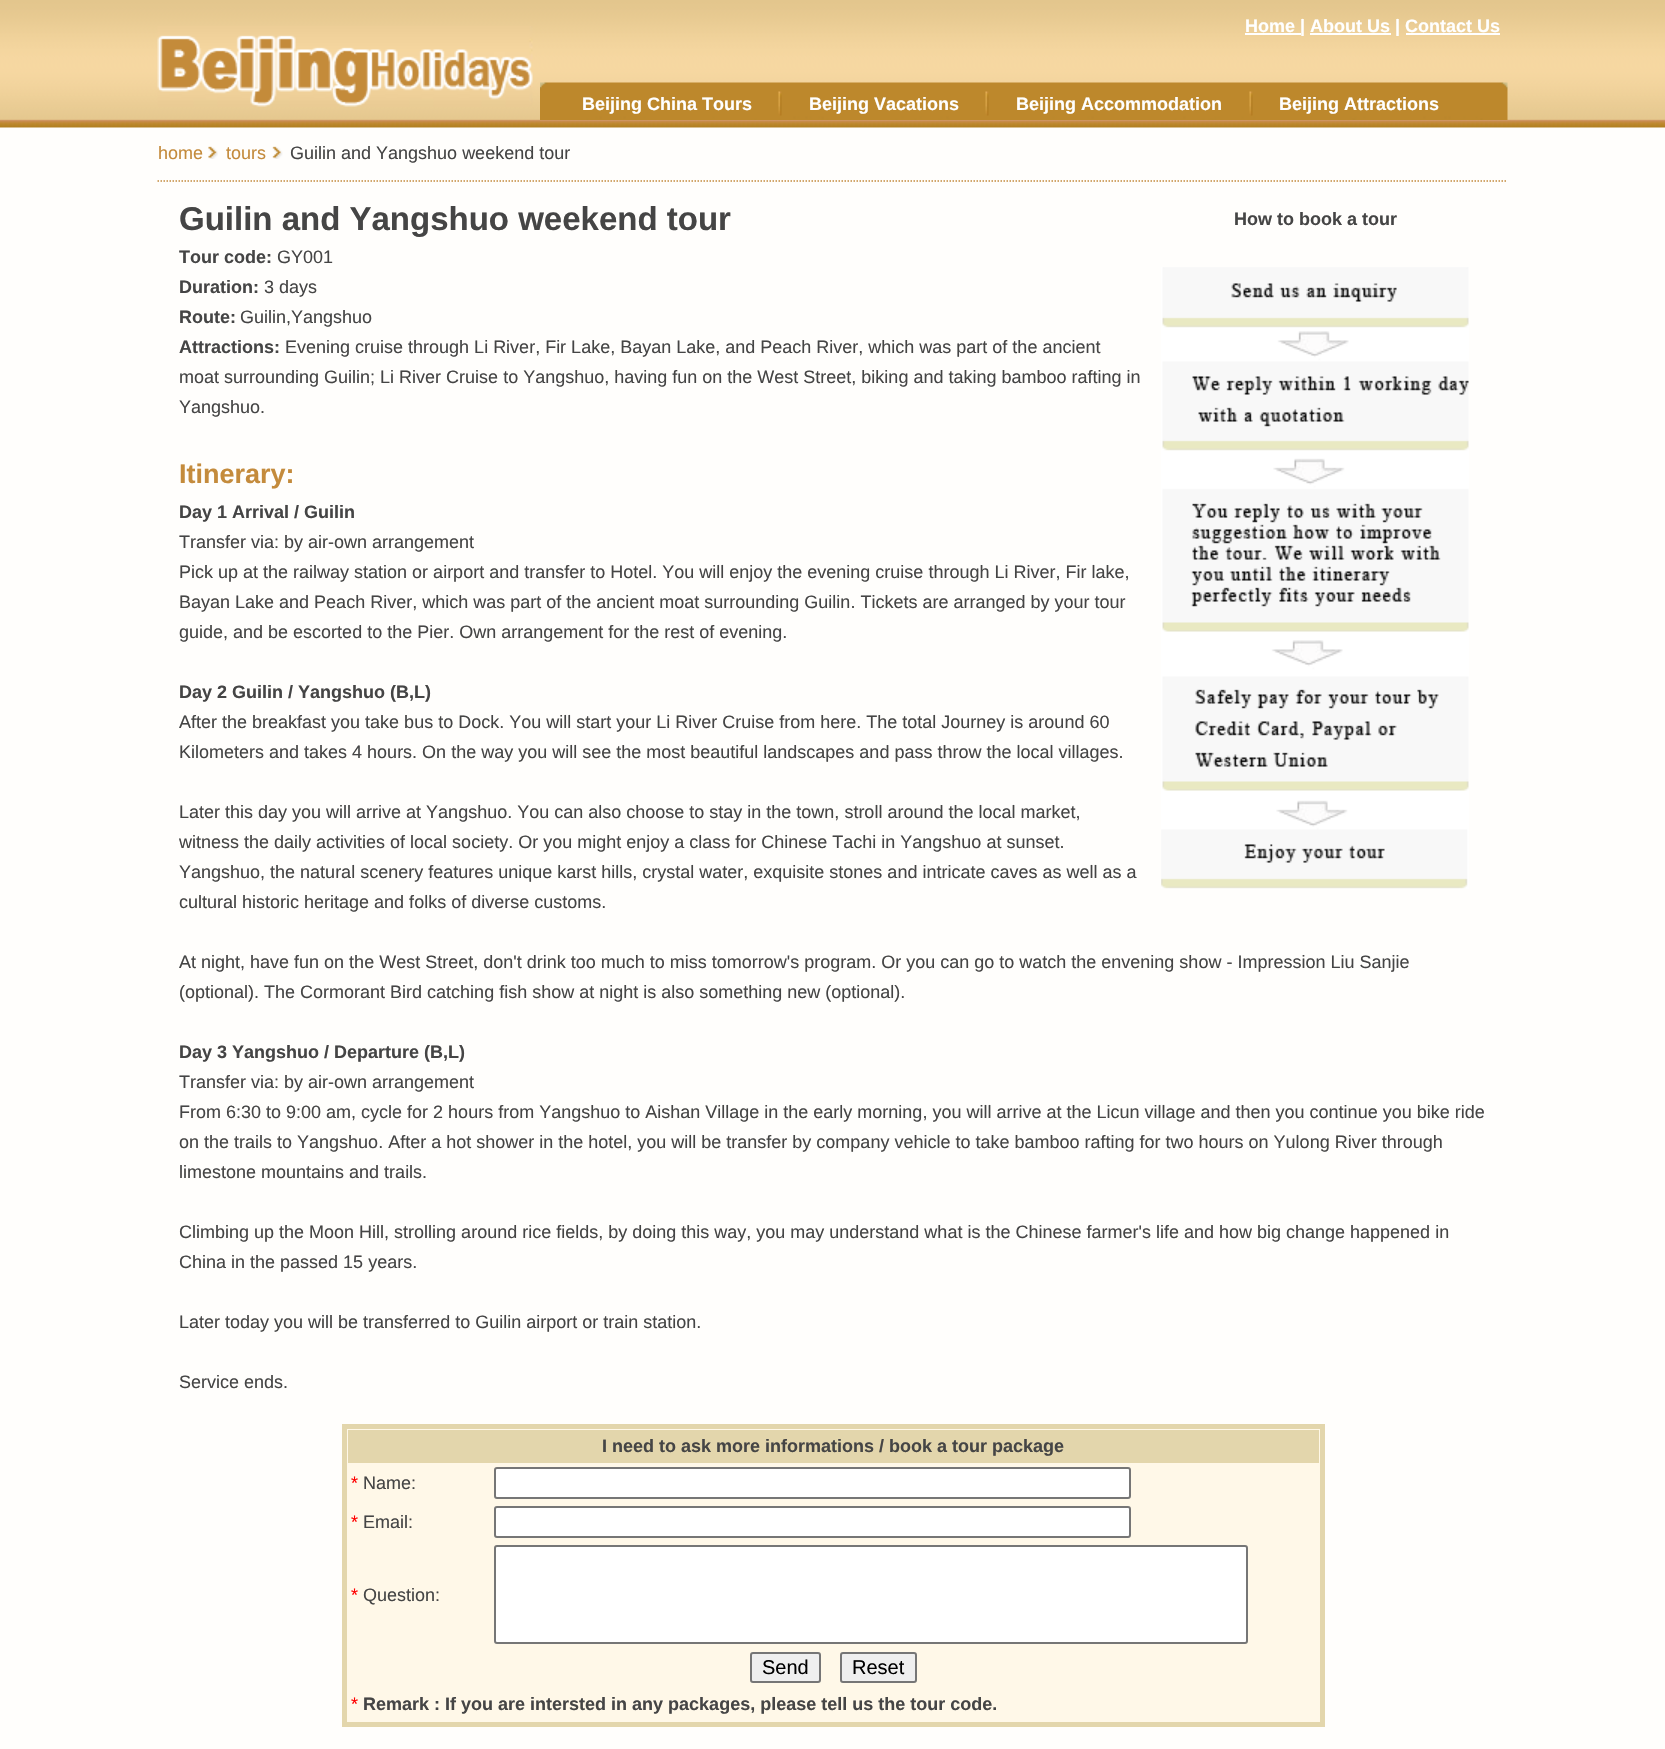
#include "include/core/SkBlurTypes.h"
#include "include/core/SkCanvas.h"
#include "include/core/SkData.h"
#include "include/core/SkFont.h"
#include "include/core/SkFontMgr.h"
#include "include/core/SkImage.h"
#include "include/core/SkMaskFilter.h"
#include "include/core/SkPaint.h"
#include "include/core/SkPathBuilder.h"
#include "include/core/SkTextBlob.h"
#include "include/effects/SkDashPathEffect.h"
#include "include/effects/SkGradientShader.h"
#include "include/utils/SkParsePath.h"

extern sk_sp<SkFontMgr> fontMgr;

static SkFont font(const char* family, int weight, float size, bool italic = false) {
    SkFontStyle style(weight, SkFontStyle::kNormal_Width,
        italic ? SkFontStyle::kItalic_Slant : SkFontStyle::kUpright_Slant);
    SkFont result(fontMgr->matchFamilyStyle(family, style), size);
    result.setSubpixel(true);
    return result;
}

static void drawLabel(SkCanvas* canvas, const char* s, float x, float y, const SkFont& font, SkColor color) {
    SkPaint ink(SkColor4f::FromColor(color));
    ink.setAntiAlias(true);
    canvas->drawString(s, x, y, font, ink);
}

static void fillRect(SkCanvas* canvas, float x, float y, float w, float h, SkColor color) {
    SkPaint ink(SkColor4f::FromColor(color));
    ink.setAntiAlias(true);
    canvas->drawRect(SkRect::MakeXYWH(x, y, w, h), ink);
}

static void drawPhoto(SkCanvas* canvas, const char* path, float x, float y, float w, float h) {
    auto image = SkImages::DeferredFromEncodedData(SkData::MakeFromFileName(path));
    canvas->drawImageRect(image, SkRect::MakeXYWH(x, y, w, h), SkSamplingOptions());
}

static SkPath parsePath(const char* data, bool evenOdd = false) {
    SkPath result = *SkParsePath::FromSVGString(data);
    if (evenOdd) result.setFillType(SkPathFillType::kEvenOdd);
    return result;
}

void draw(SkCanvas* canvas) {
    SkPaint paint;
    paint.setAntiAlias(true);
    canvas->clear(0xFFFFFEFC);
    drawPhoto(canvas, "assets/img1.png", 0, 0, 1665, 128);
    drawPhoto(canvas, "assets/img2.png", 157, 26, 376, 81);
    drawPhoto(canvas, "assets/img3.png", 540, 82, 968, 38);
    fillRect(canvas, 1245, 33, 56, 2, 0xFFFFFFFF);
    SkFont font1 = font("Liberation Sans", 700, 18);
    drawLabel(canvas, "Home | About Us | Contact Us", 1245, 32, font1, 0xFFFFFFFF);
    fillRect(canvas, 1310, 33, 81, 2, 0xFFFFFFFF);
    fillRect(canvas, 1406, 33, 94, 2, 0xFFFFFFFF);
    drawPhoto(canvas, "assets/img4.png", 778, 91, 4, 25);
    drawLabel(canvas, "Beijing China Tours", 582, 110, font1, 0xFFFFFFFF);
    drawPhoto(canvas, "assets/img4.png", 985, 91, 4, 25);
    drawLabel(canvas, "Beijing Vacations", 809, 110, font1, 0xFFFFFFFF);
    drawPhoto(canvas, "assets/img4.png", 1249, 91, 4, 25);
    drawLabel(canvas, "Beijing Accommodation", 1016, 110, font1, 0xFFFFFFFF);
    drawLabel(canvas, "Beijing Attractions", 1279, 110, font1, 0xFFFFFFFF);
    paint.setStroke(true);
    paint.setStrokeWidth(1.5f);
    paint.setColor(0xFFC48B3C);
    paint.setPathEffect(SkDashPathEffect::Make({{1.5f, 1.5f}}, 0));
    canvas->drawPath(parsePath("M157.5 181H1507.5"), paint);
    paint.setPathEffect(nullptr);
    SkFont font2 = font("Liberation Sans", 400, 18);
    drawLabel(canvas, "home", 158, 159, font2, 0xFFC48B3C);
    drawPhoto(canvas, "assets/img5.png", 208, 146, 10, 13);
    drawLabel(canvas, "tours", 226, 159, font2, 0xFFC48B3C);
    drawPhoto(canvas, "assets/img6.png", 272, 146, 11, 13);
    drawLabel(canvas, "Guilin and Yangshuo weekend tour", 290, 159, font2, 0xFF454545);
    SkFont font3 = font("Liberation Sans", 700, 33);
    drawLabel(canvas, "Guilin and Yangshuo weekend tour", 179, 230, font3, 0xFF454545);
    drawLabel(canvas, "How to book a tour", 1234, 225, font1, 0xFF454545);
    drawPhoto(canvas, "assets/img7.png", 1161, 267, 308, 622);
    drawLabel(canvas, "Tour code:", 179, 263, font1, 0xFF454545);
    drawLabel(canvas, "GY001", 277, 263, font2, 0xFF454545);
    drawLabel(canvas, "Duration:", 179, 293, font1, 0xFF454545);
    drawLabel(canvas, "3 days", 264, 293, font2, 0xFF454545);
    drawLabel(canvas, "Route:", 179, 323, font1, 0xFF454545);
    drawLabel(canvas, "Guilin,Yangshuo", 240, 323, font2, 0xFF454545);
    drawLabel(canvas, "Attractions:", 179, 353, font1, 0xFF454545);
    drawLabel(canvas, "Evening cruise through Li River, Fir Lake, Bayan Lake, and Peach River, which was part of the ancient", 285, 353, font2, 0xFF454545);
    drawLabel(canvas, "moat surrounding Guilin; Li River Cruise to Yangshuo, having fun on the West Street, biking and taking bamboo rafting in", 179, 383, font2, 0xFF454545);
    drawLabel(canvas, "Yangshuo.", 179, 413, font2, 0xFF454545);
    SkFont font4 = font("Liberation Sans", 700, 27);
    drawLabel(canvas, "Itinerary:", 179, 483, font4, 0xFFC48B3C);
    drawLabel(canvas, "Day 1 Arrival / Guilin", 179, 518, font1, 0xFF454545);
    drawLabel(canvas, "Transfer via: by air-own arrangement", 179, 548, font2, 0xFF454545);
    drawLabel(canvas, "Pick up at the railway station or airport and transfer to Hotel. You will enjoy the evening cruise through Li River, Fir lake,", 179, 578, font2, 0xFF454545);
    drawLabel(canvas, "Bayan Lake and Peach River, which was part of the ancient moat surrounding Guilin. Tickets are arranged by your tour", 179, 608, font2, 0xFF454545);
    drawLabel(canvas, "guide, and be escorted to the Pier. Own arrangement for the rest of evening.", 179, 638, font2, 0xFF454545);
    drawLabel(canvas, "Day 2 Guilin / Yangshuo (B,L)", 179, 698, font1, 0xFF454545);
    drawLabel(canvas, "After the breakfast you take bus to Dock. You will start your Li River Cruise from here. The total Journey is around 60", 179, 728, font2, 0xFF454545);
    drawLabel(canvas, "Kilometers and takes 4 hours. On the way you will see the most beautiful landscapes and pass throw the local villages.", 179, 758, font2, 0xFF454545);
    drawLabel(canvas, "Later this day you will arrive at Yangshuo. You can also choose to stay in the town, stroll around the local market,", 179, 818, font2, 0xFF454545);
    drawLabel(canvas, "witness the daily activities of local society. Or you might enjoy a class for Chinese Tachi in Yangshuo at sunset.", 179, 848, font2, 0xFF454545);
    drawLabel(canvas, "Yangshuo, the natural scenery features unique karst hills, crystal water, exquisite stones and intricate caves as well as a", 179, 878, font2, 0xFF454545);
    drawLabel(canvas, "cultural historic heritage and folks of diverse customs.", 179, 908, font2, 0xFF454545);
    drawLabel(canvas, "At night, have fun on the West Street, don't drink too much to miss tomorrow's program. Or you can go to watch the envening show - Impression Liu Sanjie", 179, 968, font2, 0xFF454545);
    drawLabel(canvas, "(optional). The Cormorant Bird catching fish show at night is also something new (optional).", 179, 998, font2, 0xFF454545);
    drawLabel(canvas, "Day 3 Yangshuo / Departure (B,L)", 179, 1058, font1, 0xFF454545);
    drawLabel(canvas, "Transfer via: by air-own arrangement", 179, 1088, font2, 0xFF454545);
    drawLabel(canvas, "From 6:30 to 9:00 am, cycle for 2 hours from Yangshuo to Aishan Village in the early morning, you will arrive at the Licun village and then you continue you bike ride", 179, 1118, font2, 0xFF454545);
    drawLabel(canvas, "on the trails to Yangshuo. After a hot shower in the hotel, you will be transfer by company vehicle to take bamboo rafting for two hours on Yulong River through", 179, 1148, font2, 0xFF454545);
    drawLabel(canvas, "limestone mountains and trails.", 179, 1178, font2, 0xFF454545);
    drawLabel(canvas, "Climbing up the Moon Hill, strolling around rice fields, by doing this way, you may understand what is the Chinese farmer's life and how big change happened in", 179, 1238, font2, 0xFF454545);
    drawLabel(canvas, "China in the passed 15 years.", 179, 1268, font2, 0xFF454545);
    drawLabel(canvas, "Later today you will be transferred to Guilin airport or train station.", 179, 1328, font2, 0xFF454545);
    drawLabel(canvas, "Service ends.", 179, 1388, font2, 0xFF454545);
    paint.setStroke(false);
    paint.setColor(0xFFFFF8E8);
    canvas->drawRect(SkRect::MakeXYWH(344.5f, 1426.5f, 978, 298), paint);
    paint.setStroke(true);
    paint.setStrokeWidth(5);
    paint.setColor(0xFFE3D6AC);
    canvas->drawRect(SkRect::MakeXYWH(344.5f, 1426.5f, 978, 298), paint);
    fillRect(canvas, 348, 1430, 971, 33, 0xFFE3D6AC);
    drawLabel(canvas, "I need to ask more informations / book a tour package", 602, 1452, font1, 0xFF454545);
    drawLabel(canvas, "*", 351, 1489, font2, 0xFFFF0000);
    drawLabel(canvas, "Name:", 363, 1489, font2, 0xFF454545);
    paint.setStroke(false);
    paint.setColor(0xFFFFFFFF);
    canvas->drawRoundRect(SkRect::MakeXYWH(495, 1468, 635, 30), 2, 2, paint);
    paint.setStroke(true);
    paint.setStrokeWidth(2);
    paint.setColor(0xFF767676);
    canvas->drawRoundRect(SkRect::MakeXYWH(495, 1468, 635, 30), 2, 2, paint);
    drawLabel(canvas, "*", 351, 1528, font2, 0xFFFF0000);
    drawLabel(canvas, "Email:", 363, 1528, font2, 0xFF454545);
    paint.setStroke(false);
    paint.setColor(0xFFFFFFFF);
    canvas->drawRoundRect(SkRect::MakeXYWH(495, 1507, 635, 30), 2, 2, paint);
    paint.setStroke(true);
    paint.setColor(0xFF767676);
    canvas->drawRoundRect(SkRect::MakeXYWH(495, 1507, 635, 30), 2, 2, paint);
    drawLabel(canvas, "*", 351, 1601, font2, 0xFFFF0000);
    drawLabel(canvas, "Question:", 363, 1601, font2, 0xFF454545);
    paint.setStroke(false);
    paint.setColor(0xFFFFFFFF);
    canvas->drawRoundRect(SkRect::MakeXYWH(495, 1546, 752, 97), 2, 2, paint);
    paint.setStroke(true);
    paint.setColor(0xFF767676);
    canvas->drawRoundRect(SkRect::MakeXYWH(495, 1546, 752, 97), 2, 2, paint);
    paint.setStroke(false);
    paint.setColor(0xFFEFEFEF);
    canvas->drawRoundRect(SkRect::MakeXYWH(751, 1653, 69, 29), 2, 2, paint);
    paint.setStroke(true);
    paint.setColor(0xFF767676);
    canvas->drawRoundRect(SkRect::MakeXYWH(751, 1653, 69, 29), 2, 2, paint);
    SkFont font5 = font("Liberation Sans", 400, 20);
    drawLabel(canvas, "Send", 762, 1674, font5, 0xFF000000);
    paint.setStroke(false);
    paint.setColor(0xFFEFEFEF);
    canvas->drawRoundRect(SkRect::MakeXYWH(841, 1653, 75, 29), 2, 2, paint);
    paint.setStroke(true);
    paint.setColor(0xFF767676);
    canvas->drawRoundRect(SkRect::MakeXYWH(841, 1653, 75, 29), 2, 2, paint);
    drawLabel(canvas, "Reset", 852, 1674, font5, 0xFF000000);
    drawLabel(canvas, "*", 351, 1710, font2, 0xFFFF0000);
    drawLabel(canvas, "Remark : If you are intersted in any packages, please tell us the tour code.", 363, 1710, font1, 0xFF454545);
}
